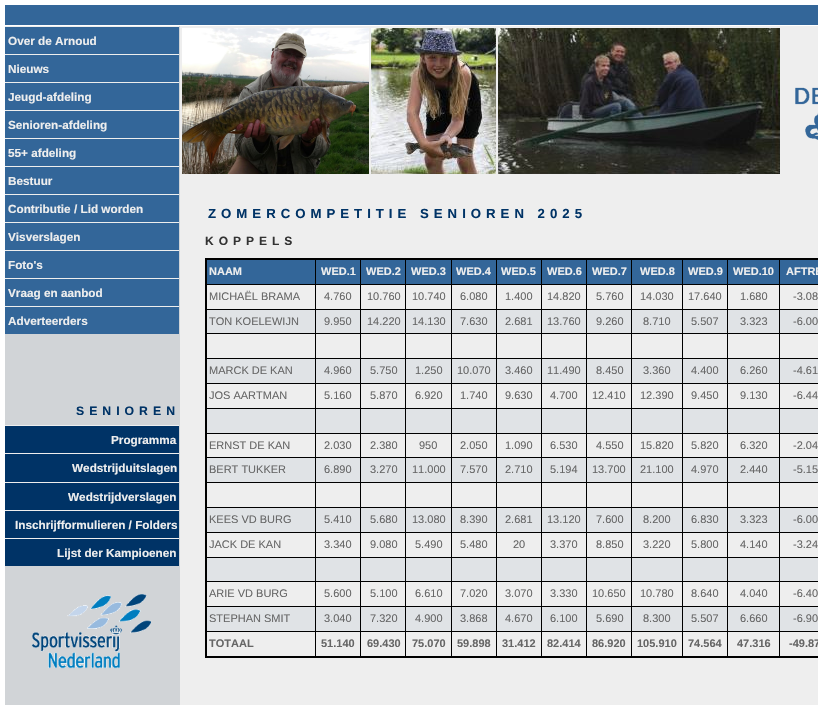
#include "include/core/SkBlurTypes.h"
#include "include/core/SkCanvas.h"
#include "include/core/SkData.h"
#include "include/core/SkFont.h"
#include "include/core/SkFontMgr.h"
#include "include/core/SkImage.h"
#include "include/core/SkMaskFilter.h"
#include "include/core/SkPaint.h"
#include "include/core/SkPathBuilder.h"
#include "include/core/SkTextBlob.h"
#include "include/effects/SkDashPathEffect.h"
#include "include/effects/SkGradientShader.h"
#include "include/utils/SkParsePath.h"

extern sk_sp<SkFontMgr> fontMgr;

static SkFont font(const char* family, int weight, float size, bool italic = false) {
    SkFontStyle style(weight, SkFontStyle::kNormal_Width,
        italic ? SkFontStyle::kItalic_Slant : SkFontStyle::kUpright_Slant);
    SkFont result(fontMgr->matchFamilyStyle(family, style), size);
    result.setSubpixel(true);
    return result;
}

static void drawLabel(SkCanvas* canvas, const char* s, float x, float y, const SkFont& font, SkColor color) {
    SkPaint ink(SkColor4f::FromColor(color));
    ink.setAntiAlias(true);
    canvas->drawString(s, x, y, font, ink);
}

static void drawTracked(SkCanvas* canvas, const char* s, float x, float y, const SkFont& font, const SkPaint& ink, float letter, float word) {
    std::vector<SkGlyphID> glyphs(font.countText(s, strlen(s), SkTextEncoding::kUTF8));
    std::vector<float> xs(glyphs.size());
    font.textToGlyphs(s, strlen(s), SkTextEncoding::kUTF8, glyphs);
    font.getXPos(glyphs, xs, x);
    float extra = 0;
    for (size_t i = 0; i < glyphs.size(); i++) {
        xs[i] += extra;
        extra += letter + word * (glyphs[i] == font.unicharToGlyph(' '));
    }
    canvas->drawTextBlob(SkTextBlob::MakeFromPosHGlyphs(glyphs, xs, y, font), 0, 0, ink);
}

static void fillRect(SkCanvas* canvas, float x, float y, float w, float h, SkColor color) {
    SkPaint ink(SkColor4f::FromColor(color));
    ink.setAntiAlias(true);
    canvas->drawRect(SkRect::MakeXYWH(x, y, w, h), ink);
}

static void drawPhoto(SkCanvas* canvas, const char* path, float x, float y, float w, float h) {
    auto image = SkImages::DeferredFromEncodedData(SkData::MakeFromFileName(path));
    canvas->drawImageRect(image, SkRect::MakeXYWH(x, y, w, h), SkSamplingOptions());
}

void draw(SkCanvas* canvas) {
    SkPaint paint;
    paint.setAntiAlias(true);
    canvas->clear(0xFFEEEEEE);
    fillRect(canvas, 5, 26, 175, 679, 0xFFD1D4D7);
    paint.setStroke(true);
    paint.setStrokeWidth(5);
    paint.setColor(0xFFFFFFFF);
    canvas->drawRect(SkRect::MakeXYWH(2.5f, 2.5f, 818, 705), paint);
    fillRect(canvas, 5, 5, 813, 20, 0xFF336699);
    fillRect(canvas, 5, 25, 813, 1, 0xFFFFFFFF);
    fillRect(canvas, 5, 27, 174, 27, 0xFF336699);
    fillRect(canvas, 5, 26, 174, 1, 0xFFEEEEEE);
    SkFont font1 = font("Liberation Sans", 700, 11.75f);
    drawLabel(canvas, "Over de Arnoud", 8, 45, font1, 0xFFEEEEEE);
    fillRect(canvas, 5, 55, 174, 27, 0xFF336699);
    fillRect(canvas, 5, 54, 174, 1, 0xFFEEEEEE);
    drawLabel(canvas, "Nieuws", 8, 73, font1, 0xFFEEEEEE);
    fillRect(canvas, 5, 83, 174, 27, 0xFF336699);
    fillRect(canvas, 5, 82, 174, 1, 0xFFEEEEEE);
    drawLabel(canvas, "Jeugd-afdeling", 8, 101, font1, 0xFFEEEEEE);
    fillRect(canvas, 5, 111, 174, 27, 0xFF336699);
    fillRect(canvas, 5, 110, 174, 1, 0xFFEEEEEE);
    drawLabel(canvas, "Senioren-afdeling", 8, 129, font1, 0xFFEEEEEE);
    fillRect(canvas, 5, 139, 174, 27, 0xFF336699);
    fillRect(canvas, 5, 138, 174, 1, 0xFFEEEEEE);
    drawLabel(canvas, "55+ afdeling", 8, 157, font1, 0xFFEEEEEE);
    fillRect(canvas, 5, 167, 174, 27, 0xFF336699);
    fillRect(canvas, 5, 166, 174, 1, 0xFFEEEEEE);
    drawLabel(canvas, "Bestuur", 8, 185, font1, 0xFFEEEEEE);
    fillRect(canvas, 5, 195, 174, 27, 0xFF336699);
    fillRect(canvas, 5, 194, 174, 1, 0xFFEEEEEE);
    drawLabel(canvas, "Contributie / Lid worden", 8, 213, font1, 0xFFEEEEEE);
    fillRect(canvas, 5, 223, 174, 27, 0xFF336699);
    fillRect(canvas, 5, 222, 174, 1, 0xFFEEEEEE);
    drawLabel(canvas, "Visverslagen", 8, 241, font1, 0xFFEEEEEE);
    fillRect(canvas, 5, 251, 174, 27, 0xFF336699);
    fillRect(canvas, 5, 250, 174, 1, 0xFFEEEEEE);
    drawLabel(canvas, "Foto's", 8, 269, font1, 0xFFEEEEEE);
    fillRect(canvas, 5, 279, 174, 27, 0xFF336699);
    fillRect(canvas, 5, 278, 174, 1, 0xFFEEEEEE);
    drawLabel(canvas, "Vraag en aanbod", 8, 297, font1, 0xFFEEEEEE);
    fillRect(canvas, 5, 307, 174, 27, 0xFF336699);
    fillRect(canvas, 5, 306, 174, 1, 0xFFEEEEEE);
    drawLabel(canvas, "Adverteerders", 8, 325, font1, 0xFFEEEEEE);
    SkFont font2 = font("Liberation Sans", 700, 12.25f);
    paint.setStroke(false);
    paint.setColor(0xFF003366);
    drawTracked(canvas, "SENIOREN", 76, 415, font2, paint, 5, 0);
    fillRect(canvas, 5, 426, 174, 27, 0xFF003366);
    fillRect(canvas, 5, 425, 174, 1, 0xFFEEEEEE);
    drawLabel(canvas, "Programma", 111, 444, font1, 0xFFEEEEEE);
    fillRect(canvas, 5, 454, 174, 28, 0xFF003366);
    fillRect(canvas, 5, 453, 174, 1, 0xFFEEEEEE);
    drawLabel(canvas, "Wedstrijduitslagen", 72, 472, font1, 0xFFEEEEEE);
    fillRect(canvas, 5, 483, 174, 27, 0xFF003366);
    fillRect(canvas, 5, 482, 174, 1, 0xFFEEEEEE);
    drawLabel(canvas, "Wedstrijdverslagen", 68, 501, font1, 0xFFEEEEEE);
    fillRect(canvas, 5, 511, 174, 27, 0xFF003366);
    fillRect(canvas, 5, 510, 174, 1, 0xFFEEEEEE);
    drawLabel(canvas, "Inschrijfformulieren / Folders", 15, 529, font1, 0xFFEEEEEE);
    fillRect(canvas, 5, 539, 174, 27, 0xFF003366);
    fillRect(canvas, 5, 538, 174, 1, 0xFFEEEEEE);
    drawLabel(canvas, "Lijst der Kampioenen", 57, 557, font1, 0xFFEEEEEE);
    drawPhoto(canvas, "assets/img1.png", 31, 594, 120, 75);
    drawPhoto(canvas, "assets/img2.png", 182, 66, 636, 108);
    drawPhoto(canvas, "assets/img3.png", 182, 28, 598, 38);
    SkFont font3 = font("Liberation Sans", 700, 13.2f);
    drawTracked(canvas, "ZOMERCOMPETITIE SENIOREN 2025", 208, 218, font3, paint, 5, 0);
    SkFont font4 = font("Liberation Sans", 700, 12);
    paint.setColor(0xFF333333);
    drawTracked(canvas, "KOPPELS", 205, 245, font4, paint, 5, 0);
    fillRect(canvas, 779, 284, 39, 1, 0xFF000000);
    fillRect(canvas, 779, 309, 39, 1, 0xFF000000);
    fillRect(canvas, 207, 310, 611, 23, 0xFFE0E3E6);
    fillRect(canvas, 779, 333, 39, 1, 0xFF000000);
    fillRect(canvas, 779, 358, 39, 1, 0xFF000000);
    fillRect(canvas, 207, 359, 611, 24, 0xFFE0E3E6);
    fillRect(canvas, 779, 383, 39, 1, 0xFF000000);
    fillRect(canvas, 779, 408, 39, 1, 0xFF000000);
    fillRect(canvas, 207, 409, 611, 24, 0xFFE0E3E6);
    fillRect(canvas, 779, 433, 39, 1, 0xFF000000);
    fillRect(canvas, 779, 457, 39, 1, 0xFF000000);
    fillRect(canvas, 207, 458, 611, 24, 0xFFE0E3E6);
    fillRect(canvas, 779, 482, 39, 1, 0xFF000000);
    fillRect(canvas, 779, 507, 39, 1, 0xFF000000);
    fillRect(canvas, 207, 508, 611, 24, 0xFFE0E3E6);
    fillRect(canvas, 779, 532, 39, 1, 0xFF000000);
    fillRect(canvas, 779, 557, 39, 1, 0xFF000000);
    fillRect(canvas, 207, 558, 611, 23, 0xFFE0E3E6);
    fillRect(canvas, 779, 581, 39, 1, 0xFF000000);
    fillRect(canvas, 779, 606, 39, 1, 0xFF000000);
    fillRect(canvas, 207, 607, 611, 24, 0xFFE0E3E6);
    fillRect(canvas, 779, 631, 39, 1, 0xFF000000);
    fillRect(canvas, 779, 631, 1, 26, 0xFF000000);
    fillRect(canvas, 727, 631, 53, 1, 0xFF000000);
    fillRect(canvas, 779, 606, 1, 26, 0xFF000000);
    fillRect(canvas, 727, 606, 53, 1, 0xFF000000);
    fillRect(canvas, 779, 581, 1, 26, 0xFF000000);
    fillRect(canvas, 727, 581, 53, 1, 0xFF000000);
    fillRect(canvas, 779, 557, 1, 25, 0xFF000000);
    fillRect(canvas, 727, 557, 53, 1, 0xFF000000);
    fillRect(canvas, 779, 532, 1, 26, 0xFF000000);
    fillRect(canvas, 727, 532, 53, 1, 0xFF000000);
    fillRect(canvas, 779, 507, 1, 26, 0xFF000000);
    fillRect(canvas, 727, 507, 53, 1, 0xFF000000);
    fillRect(canvas, 779, 482, 1, 26, 0xFF000000);
    fillRect(canvas, 727, 482, 53, 1, 0xFF000000);
    fillRect(canvas, 779, 457, 1, 26, 0xFF000000);
    fillRect(canvas, 727, 457, 53, 1, 0xFF000000);
    fillRect(canvas, 779, 433, 1, 25, 0xFF000000);
    fillRect(canvas, 727, 433, 53, 1, 0xFF000000);
    fillRect(canvas, 779, 408, 1, 26, 0xFF000000);
    fillRect(canvas, 727, 408, 53, 1, 0xFF000000);
    fillRect(canvas, 779, 383, 1, 26, 0xFF000000);
    fillRect(canvas, 727, 383, 53, 1, 0xFF000000);
    fillRect(canvas, 779, 358, 1, 26, 0xFF000000);
    fillRect(canvas, 727, 358, 53, 1, 0xFF000000);
    fillRect(canvas, 779, 333, 1, 26, 0xFF000000);
    fillRect(canvas, 727, 333, 53, 1, 0xFF000000);
    fillRect(canvas, 779, 309, 1, 25, 0xFF000000);
    fillRect(canvas, 727, 309, 53, 1, 0xFF000000);
    fillRect(canvas, 779, 284, 1, 26, 0xFF000000);
    fillRect(canvas, 727, 284, 53, 1, 0xFF000000);
    fillRect(canvas, 727, 631, 1, 26, 0xFF000000);
    fillRect(canvas, 682, 631, 46, 1, 0xFF000000);
    fillRect(canvas, 727, 606, 1, 26, 0xFF000000);
    fillRect(canvas, 682, 606, 46, 1, 0xFF000000);
    fillRect(canvas, 727, 581, 1, 26, 0xFF000000);
    fillRect(canvas, 682, 581, 46, 1, 0xFF000000);
    fillRect(canvas, 727, 557, 1, 25, 0xFF000000);
    fillRect(canvas, 682, 557, 46, 1, 0xFF000000);
    fillRect(canvas, 727, 532, 1, 26, 0xFF000000);
    fillRect(canvas, 682, 532, 46, 1, 0xFF000000);
    fillRect(canvas, 727, 507, 1, 26, 0xFF000000);
    fillRect(canvas, 682, 507, 46, 1, 0xFF000000);
    fillRect(canvas, 727, 482, 1, 26, 0xFF000000);
    fillRect(canvas, 682, 482, 46, 1, 0xFF000000);
    fillRect(canvas, 727, 457, 1, 26, 0xFF000000);
    fillRect(canvas, 682, 457, 46, 1, 0xFF000000);
    fillRect(canvas, 727, 433, 1, 25, 0xFF000000);
    fillRect(canvas, 682, 433, 46, 1, 0xFF000000);
    fillRect(canvas, 727, 408, 1, 26, 0xFF000000);
    fillRect(canvas, 682, 408, 46, 1, 0xFF000000);
    fillRect(canvas, 727, 383, 1, 26, 0xFF000000);
    fillRect(canvas, 682, 383, 46, 1, 0xFF000000);
    fillRect(canvas, 727, 358, 1, 26, 0xFF000000);
    fillRect(canvas, 682, 358, 46, 1, 0xFF000000);
    fillRect(canvas, 727, 333, 1, 26, 0xFF000000);
    fillRect(canvas, 682, 333, 46, 1, 0xFF000000);
    fillRect(canvas, 727, 309, 1, 25, 0xFF000000);
    fillRect(canvas, 682, 309, 46, 1, 0xFF000000);
    fillRect(canvas, 727, 284, 1, 26, 0xFF000000);
    fillRect(canvas, 682, 284, 46, 1, 0xFF000000);
    fillRect(canvas, 682, 631, 1, 26, 0xFF000000);
    fillRect(canvas, 631, 631, 52, 1, 0xFF000000);
    fillRect(canvas, 682, 606, 1, 26, 0xFF000000);
    fillRect(canvas, 631, 606, 52, 1, 0xFF000000);
    fillRect(canvas, 682, 581, 1, 26, 0xFF000000);
    fillRect(canvas, 631, 581, 52, 1, 0xFF000000);
    fillRect(canvas, 682, 557, 1, 25, 0xFF000000);
    fillRect(canvas, 631, 557, 52, 1, 0xFF000000);
    fillRect(canvas, 682, 532, 1, 26, 0xFF000000);
    fillRect(canvas, 631, 532, 52, 1, 0xFF000000);
    fillRect(canvas, 682, 507, 1, 26, 0xFF000000);
    fillRect(canvas, 631, 507, 52, 1, 0xFF000000);
    fillRect(canvas, 682, 482, 1, 26, 0xFF000000);
    fillRect(canvas, 631, 482, 52, 1, 0xFF000000);
    fillRect(canvas, 682, 457, 1, 26, 0xFF000000);
    fillRect(canvas, 631, 457, 52, 1, 0xFF000000);
    fillRect(canvas, 682, 433, 1, 25, 0xFF000000);
    fillRect(canvas, 631, 433, 52, 1, 0xFF000000);
    fillRect(canvas, 682, 408, 1, 26, 0xFF000000);
    fillRect(canvas, 631, 408, 52, 1, 0xFF000000);
    fillRect(canvas, 682, 383, 1, 26, 0xFF000000);
    fillRect(canvas, 631, 383, 52, 1, 0xFF000000);
    fillRect(canvas, 682, 358, 1, 26, 0xFF000000);
    fillRect(canvas, 631, 358, 52, 1, 0xFF000000);
    fillRect(canvas, 682, 333, 1, 26, 0xFF000000);
    fillRect(canvas, 631, 333, 52, 1, 0xFF000000);
    fillRect(canvas, 682, 309, 1, 25, 0xFF000000);
    fillRect(canvas, 631, 309, 52, 1, 0xFF000000);
    fillRect(canvas, 682, 284, 1, 26, 0xFF000000);
    fillRect(canvas, 631, 284, 52, 1, 0xFF000000);
    fillRect(canvas, 631, 631, 1, 26, 0xFF000000);
    fillRect(canvas, 586, 631, 46, 1, 0xFF000000);
    fillRect(canvas, 631, 606, 1, 26, 0xFF000000);
    fillRect(canvas, 586, 606, 46, 1, 0xFF000000);
    fillRect(canvas, 631, 581, 1, 26, 0xFF000000);
    fillRect(canvas, 586, 581, 46, 1, 0xFF000000);
    fillRect(canvas, 631, 557, 1, 25, 0xFF000000);
    fillRect(canvas, 586, 557, 46, 1, 0xFF000000);
    fillRect(canvas, 631, 532, 1, 26, 0xFF000000);
    fillRect(canvas, 586, 532, 46, 1, 0xFF000000);
    fillRect(canvas, 631, 507, 1, 26, 0xFF000000);
    fillRect(canvas, 586, 507, 46, 1, 0xFF000000);
    fillRect(canvas, 631, 482, 1, 26, 0xFF000000);
    fillRect(canvas, 586, 482, 46, 1, 0xFF000000);
    fillRect(canvas, 631, 457, 1, 26, 0xFF000000);
    fillRect(canvas, 586, 457, 46, 1, 0xFF000000);
    fillRect(canvas, 631, 433, 1, 25, 0xFF000000);
    fillRect(canvas, 586, 433, 46, 1, 0xFF000000);
    fillRect(canvas, 631, 408, 1, 26, 0xFF000000);
    fillRect(canvas, 586, 408, 46, 1, 0xFF000000);
    fillRect(canvas, 631, 383, 1, 26, 0xFF000000);
    fillRect(canvas, 586, 383, 46, 1, 0xFF000000);
    fillRect(canvas, 631, 358, 1, 26, 0xFF000000);
    fillRect(canvas, 586, 358, 46, 1, 0xFF000000);
    fillRect(canvas, 631, 333, 1, 26, 0xFF000000);
    fillRect(canvas, 586, 333, 46, 1, 0xFF000000);
    fillRect(canvas, 631, 309, 1, 25, 0xFF000000);
    fillRect(canvas, 586, 309, 46, 1, 0xFF000000);
    fillRect(canvas, 631, 284, 1, 26, 0xFF000000);
    fillRect(canvas, 586, 284, 46, 1, 0xFF000000);
    fillRect(canvas, 586, 631, 1, 26, 0xFF000000);
    fillRect(canvas, 541, 631, 46, 1, 0xFF000000);
    fillRect(canvas, 586, 606, 1, 26, 0xFF000000);
    fillRect(canvas, 541, 606, 46, 1, 0xFF000000);
    fillRect(canvas, 586, 581, 1, 26, 0xFF000000);
    fillRect(canvas, 541, 581, 46, 1, 0xFF000000);
    fillRect(canvas, 586, 557, 1, 25, 0xFF000000);
    fillRect(canvas, 541, 557, 46, 1, 0xFF000000);
    fillRect(canvas, 586, 532, 1, 26, 0xFF000000);
    fillRect(canvas, 541, 532, 46, 1, 0xFF000000);
    fillRect(canvas, 586, 507, 1, 26, 0xFF000000);
    fillRect(canvas, 541, 507, 46, 1, 0xFF000000);
    fillRect(canvas, 586, 482, 1, 26, 0xFF000000);
    fillRect(canvas, 541, 482, 46, 1, 0xFF000000);
    fillRect(canvas, 586, 457, 1, 26, 0xFF000000);
    fillRect(canvas, 541, 457, 46, 1, 0xFF000000);
    fillRect(canvas, 586, 433, 1, 25, 0xFF000000);
    fillRect(canvas, 541, 433, 46, 1, 0xFF000000);
    fillRect(canvas, 586, 408, 1, 26, 0xFF000000);
    fillRect(canvas, 541, 408, 46, 1, 0xFF000000);
    fillRect(canvas, 586, 383, 1, 26, 0xFF000000);
    fillRect(canvas, 541, 383, 46, 1, 0xFF000000);
    fillRect(canvas, 586, 358, 1, 26, 0xFF000000);
    fillRect(canvas, 541, 358, 46, 1, 0xFF000000);
    fillRect(canvas, 586, 333, 1, 26, 0xFF000000);
    fillRect(canvas, 541, 333, 46, 1, 0xFF000000);
    fillRect(canvas, 586, 309, 1, 25, 0xFF000000);
    fillRect(canvas, 541, 309, 46, 1, 0xFF000000);
    fillRect(canvas, 586, 284, 1, 26, 0xFF000000);
    fillRect(canvas, 541, 284, 46, 1, 0xFF000000);
    fillRect(canvas, 541, 631, 1, 26, 0xFF000000);
    fillRect(canvas, 496, 631, 46, 1, 0xFF000000);
    fillRect(canvas, 541, 606, 1, 26, 0xFF000000);
    fillRect(canvas, 496, 606, 46, 1, 0xFF000000);
    fillRect(canvas, 541, 581, 1, 26, 0xFF000000);
    fillRect(canvas, 496, 581, 46, 1, 0xFF000000);
    fillRect(canvas, 541, 557, 1, 25, 0xFF000000);
    fillRect(canvas, 496, 557, 46, 1, 0xFF000000);
    fillRect(canvas, 541, 532, 1, 26, 0xFF000000);
    fillRect(canvas, 496, 532, 46, 1, 0xFF000000);
    fillRect(canvas, 541, 507, 1, 26, 0xFF000000);
    fillRect(canvas, 496, 507, 46, 1, 0xFF000000);
    fillRect(canvas, 541, 482, 1, 26, 0xFF000000);
    fillRect(canvas, 496, 482, 46, 1, 0xFF000000);
    fillRect(canvas, 541, 457, 1, 26, 0xFF000000);
    fillRect(canvas, 496, 457, 46, 1, 0xFF000000);
    fillRect(canvas, 541, 433, 1, 25, 0xFF000000);
    fillRect(canvas, 496, 433, 46, 1, 0xFF000000);
    fillRect(canvas, 541, 408, 1, 26, 0xFF000000);
    fillRect(canvas, 496, 408, 46, 1, 0xFF000000);
    fillRect(canvas, 541, 383, 1, 26, 0xFF000000);
    fillRect(canvas, 496, 383, 46, 1, 0xFF000000);
    fillRect(canvas, 541, 358, 1, 26, 0xFF000000);
    fillRect(canvas, 496, 358, 46, 1, 0xFF000000);
    fillRect(canvas, 541, 333, 1, 26, 0xFF000000);
    fillRect(canvas, 496, 333, 46, 1, 0xFF000000);
    fillRect(canvas, 541, 309, 1, 25, 0xFF000000);
    fillRect(canvas, 496, 309, 46, 1, 0xFF000000);
    fillRect(canvas, 541, 284, 1, 26, 0xFF000000);
    fillRect(canvas, 496, 284, 46, 1, 0xFF000000);
    fillRect(canvas, 496, 631, 1, 26, 0xFF000000);
    fillRect(canvas, 451, 631, 46, 1, 0xFF000000);
    fillRect(canvas, 496, 606, 1, 26, 0xFF000000);
    fillRect(canvas, 451, 606, 46, 1, 0xFF000000);
    fillRect(canvas, 496, 581, 1, 26, 0xFF000000);
    fillRect(canvas, 451, 581, 46, 1, 0xFF000000);
    fillRect(canvas, 496, 557, 1, 25, 0xFF000000);
    fillRect(canvas, 451, 557, 46, 1, 0xFF000000);
    fillRect(canvas, 496, 532, 1, 26, 0xFF000000);
    fillRect(canvas, 451, 532, 46, 1, 0xFF000000);
    fillRect(canvas, 496, 507, 1, 26, 0xFF000000);
    fillRect(canvas, 451, 507, 46, 1, 0xFF000000);
    fillRect(canvas, 496, 482, 1, 26, 0xFF000000);
    fillRect(canvas, 451, 482, 46, 1, 0xFF000000);
    fillRect(canvas, 496, 457, 1, 26, 0xFF000000);
    fillRect(canvas, 451, 457, 46, 1, 0xFF000000);
    fillRect(canvas, 496, 433, 1, 25, 0xFF000000);
    fillRect(canvas, 451, 433, 46, 1, 0xFF000000);
    fillRect(canvas, 496, 408, 1, 26, 0xFF000000);
    fillRect(canvas, 451, 408, 46, 1, 0xFF000000);
    fillRect(canvas, 496, 383, 1, 26, 0xFF000000);
    fillRect(canvas, 451, 383, 46, 1, 0xFF000000);
    fillRect(canvas, 496, 358, 1, 26, 0xFF000000);
    fillRect(canvas, 451, 358, 46, 1, 0xFF000000);
    fillRect(canvas, 496, 333, 1, 26, 0xFF000000);
    fillRect(canvas, 451, 333, 46, 1, 0xFF000000);
    fillRect(canvas, 496, 309, 1, 25, 0xFF000000);
    fillRect(canvas, 451, 309, 46, 1, 0xFF000000);
    fillRect(canvas, 496, 284, 1, 26, 0xFF000000);
    fillRect(canvas, 451, 284, 46, 1, 0xFF000000);
    fillRect(canvas, 451, 631, 1, 26, 0xFF000000);
    fillRect(canvas, 405, 631, 47, 1, 0xFF000000);
    fillRect(canvas, 451, 606, 1, 26, 0xFF000000);
    fillRect(canvas, 405, 606, 47, 1, 0xFF000000);
    fillRect(canvas, 451, 581, 1, 26, 0xFF000000);
    fillRect(canvas, 405, 581, 47, 1, 0xFF000000);
    fillRect(canvas, 451, 557, 1, 25, 0xFF000000);
    fillRect(canvas, 405, 557, 47, 1, 0xFF000000);
    fillRect(canvas, 451, 532, 1, 26, 0xFF000000);
    fillRect(canvas, 405, 532, 47, 1, 0xFF000000);
    fillRect(canvas, 451, 507, 1, 26, 0xFF000000);
    fillRect(canvas, 405, 507, 47, 1, 0xFF000000);
    fillRect(canvas, 451, 482, 1, 26, 0xFF000000);
    fillRect(canvas, 405, 482, 47, 1, 0xFF000000);
    fillRect(canvas, 451, 457, 1, 26, 0xFF000000);
    fillRect(canvas, 405, 457, 47, 1, 0xFF000000);
    fillRect(canvas, 451, 433, 1, 25, 0xFF000000);
    fillRect(canvas, 405, 433, 47, 1, 0xFF000000);
    fillRect(canvas, 451, 408, 1, 26, 0xFF000000);
    fillRect(canvas, 405, 408, 47, 1, 0xFF000000);
    fillRect(canvas, 451, 383, 1, 26, 0xFF000000);
    fillRect(canvas, 405, 383, 47, 1, 0xFF000000);
    fillRect(canvas, 451, 358, 1, 26, 0xFF000000);
    fillRect(canvas, 405, 358, 47, 1, 0xFF000000);
    fillRect(canvas, 451, 333, 1, 26, 0xFF000000);
    fillRect(canvas, 405, 333, 47, 1, 0xFF000000);
    fillRect(canvas, 451, 309, 1, 25, 0xFF000000);
    fillRect(canvas, 405, 309, 47, 1, 0xFF000000);
    fillRect(canvas, 451, 284, 1, 26, 0xFF000000);
    fillRect(canvas, 405, 284, 47, 1, 0xFF000000);
    fillRect(canvas, 405, 631, 1, 26, 0xFF000000);
    fillRect(canvas, 360, 631, 46, 1, 0xFF000000);
    fillRect(canvas, 405, 606, 1, 26, 0xFF000000);
    fillRect(canvas, 360, 606, 46, 1, 0xFF000000);
    fillRect(canvas, 405, 581, 1, 26, 0xFF000000);
    fillRect(canvas, 360, 581, 46, 1, 0xFF000000);
    fillRect(canvas, 405, 557, 1, 25, 0xFF000000);
    fillRect(canvas, 360, 557, 46, 1, 0xFF000000);
    fillRect(canvas, 405, 532, 1, 26, 0xFF000000);
    fillRect(canvas, 360, 532, 46, 1, 0xFF000000);
    fillRect(canvas, 405, 507, 1, 26, 0xFF000000);
    fillRect(canvas, 360, 507, 46, 1, 0xFF000000);
    fillRect(canvas, 405, 482, 1, 26, 0xFF000000);
    fillRect(canvas, 360, 482, 46, 1, 0xFF000000);
    fillRect(canvas, 405, 457, 1, 26, 0xFF000000);
    fillRect(canvas, 360, 457, 46, 1, 0xFF000000);
    fillRect(canvas, 405, 433, 1, 25, 0xFF000000);
    fillRect(canvas, 360, 433, 46, 1, 0xFF000000);
    fillRect(canvas, 405, 408, 1, 26, 0xFF000000);
    fillRect(canvas, 360, 408, 46, 1, 0xFF000000);
    fillRect(canvas, 405, 383, 1, 26, 0xFF000000);
    fillRect(canvas, 360, 383, 46, 1, 0xFF000000);
    fillRect(canvas, 405, 358, 1, 26, 0xFF000000);
    fillRect(canvas, 360, 358, 46, 1, 0xFF000000);
    fillRect(canvas, 405, 333, 1, 26, 0xFF000000);
    fillRect(canvas, 360, 333, 46, 1, 0xFF000000);
    fillRect(canvas, 405, 309, 1, 25, 0xFF000000);
    fillRect(canvas, 360, 309, 46, 1, 0xFF000000);
    fillRect(canvas, 405, 284, 1, 26, 0xFF000000);
    fillRect(canvas, 360, 284, 46, 1, 0xFF000000);
    fillRect(canvas, 360, 631, 1, 26, 0xFF000000);
    fillRect(canvas, 315, 631, 46, 1, 0xFF000000);
    fillRect(canvas, 360, 606, 1, 26, 0xFF000000);
    fillRect(canvas, 315, 606, 46, 1, 0xFF000000);
    fillRect(canvas, 360, 581, 1, 26, 0xFF000000);
    fillRect(canvas, 315, 581, 46, 1, 0xFF000000);
    fillRect(canvas, 360, 557, 1, 25, 0xFF000000);
    fillRect(canvas, 315, 557, 46, 1, 0xFF000000);
    fillRect(canvas, 360, 532, 1, 26, 0xFF000000);
    fillRect(canvas, 315, 532, 46, 1, 0xFF000000);
    fillRect(canvas, 360, 507, 1, 26, 0xFF000000);
    fillRect(canvas, 315, 507, 46, 1, 0xFF000000);
    fillRect(canvas, 360, 482, 1, 26, 0xFF000000);
    fillRect(canvas, 315, 482, 46, 1, 0xFF000000);
    fillRect(canvas, 360, 457, 1, 26, 0xFF000000);
    fillRect(canvas, 315, 457, 46, 1, 0xFF000000);
    fillRect(canvas, 360, 433, 1, 25, 0xFF000000);
    fillRect(canvas, 315, 433, 46, 1, 0xFF000000);
    fillRect(canvas, 360, 408, 1, 26, 0xFF000000);
    fillRect(canvas, 315, 408, 46, 1, 0xFF000000);
    fillRect(canvas, 360, 383, 1, 26, 0xFF000000);
    fillRect(canvas, 315, 383, 46, 1, 0xFF000000);
    fillRect(canvas, 360, 358, 1, 26, 0xFF000000);
    fillRect(canvas, 315, 358, 46, 1, 0xFF000000);
    fillRect(canvas, 360, 333, 1, 26, 0xFF000000);
    fillRect(canvas, 315, 333, 46, 1, 0xFF000000);
    fillRect(canvas, 360, 309, 1, 25, 0xFF000000);
    fillRect(canvas, 315, 309, 46, 1, 0xFF000000);
    fillRect(canvas, 360, 284, 1, 26, 0xFF000000);
    fillRect(canvas, 315, 284, 46, 1, 0xFF000000);
    fillRect(canvas, 315, 631, 1, 26, 0xFF000000);
    fillRect(canvas, 206, 631, 110, 1, 0xFF000000);
    fillRect(canvas, 315, 606, 1, 26, 0xFF000000);
    fillRect(canvas, 206, 606, 110, 1, 0xFF000000);
    fillRect(canvas, 315, 581, 1, 26, 0xFF000000);
    fillRect(canvas, 206, 581, 110, 1, 0xFF000000);
    fillRect(canvas, 315, 557, 1, 25, 0xFF000000);
    fillRect(canvas, 206, 557, 110, 1, 0xFF000000);
    fillRect(canvas, 315, 532, 1, 26, 0xFF000000);
    fillRect(canvas, 206, 532, 110, 1, 0xFF000000);
    fillRect(canvas, 315, 507, 1, 26, 0xFF000000);
    fillRect(canvas, 206, 507, 110, 1, 0xFF000000);
    fillRect(canvas, 315, 482, 1, 26, 0xFF000000);
    fillRect(canvas, 206, 482, 110, 1, 0xFF000000);
    fillRect(canvas, 315, 457, 1, 26, 0xFF000000);
    fillRect(canvas, 206, 457, 110, 1, 0xFF000000);
    fillRect(canvas, 315, 433, 1, 25, 0xFF000000);
    fillRect(canvas, 206, 433, 110, 1, 0xFF000000);
    fillRect(canvas, 315, 408, 1, 26, 0xFF000000);
    fillRect(canvas, 206, 408, 110, 1, 0xFF000000);
    fillRect(canvas, 315, 383, 1, 26, 0xFF000000);
    fillRect(canvas, 206, 383, 110, 1, 0xFF000000);
    fillRect(canvas, 315, 358, 1, 26, 0xFF000000);
    fillRect(canvas, 206, 358, 110, 1, 0xFF000000);
    fillRect(canvas, 315, 333, 1, 26, 0xFF000000);
    fillRect(canvas, 206, 333, 110, 1, 0xFF000000);
    fillRect(canvas, 315, 309, 1, 25, 0xFF000000);
    fillRect(canvas, 206, 309, 110, 1, 0xFF000000);
    fillRect(canvas, 315, 284, 1, 26, 0xFF000000);
    fillRect(canvas, 206, 284, 110, 1, 0xFF000000);
    fillRect(canvas, 315, 259, 1, 26, 0xFF000000);
    fillRect(canvas, 360, 259, 1, 26, 0xFF000000);
    fillRect(canvas, 405, 259, 1, 26, 0xFF000000);
    fillRect(canvas, 451, 259, 1, 26, 0xFF000000);
    fillRect(canvas, 496, 259, 1, 26, 0xFF000000);
    fillRect(canvas, 541, 259, 1, 26, 0xFF000000);
    fillRect(canvas, 586, 259, 1, 26, 0xFF000000);
    fillRect(canvas, 631, 259, 1, 26, 0xFF000000);
    fillRect(canvas, 682, 259, 1, 26, 0xFF000000);
    fillRect(canvas, 727, 259, 1, 26, 0xFF000000);
    fillRect(canvas, 779, 259, 1, 26, 0xFF000000);
    fillRect(canvas, 205, 258, 613, 2, 0xFF000000);
    fillRect(canvas, 205, 656, 613, 2, 0xFF000000);
    fillRect(canvas, 205, 258, 2, 400, 0xFF000000);
    fillRect(canvas, 207, 260, 108, 24, 0xFF336699);
    SkFont font5 = font("Liberation Sans", 700, 11);
    drawLabel(canvas, "NAAM", 209, 275, font5, 0xFFEEEEEE);
    fillRect(canvas, 316, 260, 44, 24, 0xFF336699);
    drawLabel(canvas, "WED.1", 321, 275, font5, 0xFFEEEEEE);
    fillRect(canvas, 361, 260, 44, 24, 0xFF336699);
    drawLabel(canvas, "WED.2", 366, 275, font5, 0xFFEEEEEE);
    fillRect(canvas, 406, 260, 45, 24, 0xFF336699);
    drawLabel(canvas, "WED.3", 411, 275, font5, 0xFFEEEEEE);
    fillRect(canvas, 452, 260, 44, 24, 0xFF336699);
    drawLabel(canvas, "WED.4", 456, 275, font5, 0xFFEEEEEE);
    fillRect(canvas, 497, 260, 44, 24, 0xFF336699);
    drawLabel(canvas, "WED.5", 501, 275, font5, 0xFFEEEEEE);
    fillRect(canvas, 542, 260, 44, 24, 0xFF336699);
    drawLabel(canvas, "WED.6", 547, 275, font5, 0xFFEEEEEE);
    fillRect(canvas, 587, 260, 44, 24, 0xFF336699);
    drawLabel(canvas, "WED.7", 592, 275, font5, 0xFFEEEEEE);
    fillRect(canvas, 632, 260, 50, 24, 0xFF336699);
    drawLabel(canvas, "WED.8", 640, 275, font5, 0xFFEEEEEE);
    fillRect(canvas, 683, 260, 44, 24, 0xFF336699);
    drawLabel(canvas, "WED.9", 688, 275, font5, 0xFFEEEEEE);
    fillRect(canvas, 728, 260, 51, 24, 0xFF336699);
    drawLabel(canvas, "WED.10", 733, 275, font5, 0xFFEEEEEE);
    fillRect(canvas, 780, 260, 38, 24, 0xFF336699);
    drawLabel(canvas, "AFTRE", 786, 275, font5, 0xFFEEEEEE);
    SkFont font6 = font("Liberation Sans", 400, 11);
    drawLabel(canvas, "MICHAËL BRAMA", 209, 300, font6, 0xFF666666);
    drawLabel(canvas, "4.760", 324, 300, font6, 0xFF666666);
    drawLabel(canvas, "10.760", 367, 300, font6, 0xFF666666);
    drawLabel(canvas, "10.740", 412, 300, font6, 0xFF666666);
    drawLabel(canvas, "6.080", 460, 300, font6, 0xFF666666);
    drawLabel(canvas, "1.400", 505, 300, font6, 0xFF666666);
    drawLabel(canvas, "14.820", 547, 300, font6, 0xFF666666);
    drawLabel(canvas, "5.760", 596, 300, font6, 0xFF666666);
    drawLabel(canvas, "14.030", 640, 300, font6, 0xFF666666);
    drawLabel(canvas, "17.640", 688, 300, font6, 0xFF666666);
    drawLabel(canvas, "1.680", 740, 300, font6, 0xFF666666);
    drawLabel(canvas, "-3.08", 793, 300, font6, 0xFF666666);
    drawLabel(canvas, "TON KOELEWIJN", 209, 325, font6, 0xFF666666);
    drawLabel(canvas, "9.950", 324, 325, font6, 0xFF666666);
    drawLabel(canvas, "14.220", 367, 325, font6, 0xFF666666);
    drawLabel(canvas, "14.130", 412, 325, font6, 0xFF666666);
    drawLabel(canvas, "7.630", 460, 325, font6, 0xFF666666);
    drawLabel(canvas, "2.681", 505, 325, font6, 0xFF666666);
    drawLabel(canvas, "13.760", 547, 325, font6, 0xFF666666);
    drawLabel(canvas, "9.260", 596, 325, font6, 0xFF666666);
    drawLabel(canvas, "8.710", 643, 325, font6, 0xFF666666);
    drawLabel(canvas, "5.507", 691, 325, font6, 0xFF666666);
    drawLabel(canvas, "3.323", 740, 325, font6, 0xFF666666);
    drawLabel(canvas, "-6.00", 793, 325, font6, 0xFF666666);
    drawLabel(canvas, "MARCK DE KAN", 209, 374, font6, 0xFF666666);
    drawLabel(canvas, "4.960", 324, 374, font6, 0xFF666666);
    drawLabel(canvas, "5.750", 370, 374, font6, 0xFF666666);
    drawLabel(canvas, "1.250", 415, 374, font6, 0xFF666666);
    drawLabel(canvas, "10.070", 457, 374, font6, 0xFF666666);
    drawLabel(canvas, "3.460", 505, 374, font6, 0xFF666666);
    drawLabel(canvas, "11.490", 547, 374, font6, 0xFF666666);
    drawLabel(canvas, "8.450", 596, 374, font6, 0xFF666666);
    drawLabel(canvas, "3.360", 643, 374, font6, 0xFF666666);
    drawLabel(canvas, "4.400", 691, 374, font6, 0xFF666666);
    drawLabel(canvas, "6.260", 740, 374, font6, 0xFF666666);
    drawLabel(canvas, "-4.61", 793, 374, font6, 0xFF666666);
    drawLabel(canvas, "JOS AARTMAN", 209, 399, font6, 0xFF666666);
    drawLabel(canvas, "5.160", 324, 399, font6, 0xFF666666);
    drawLabel(canvas, "5.870", 370, 399, font6, 0xFF666666);
    drawLabel(canvas, "6.920", 415, 399, font6, 0xFF666666);
    drawLabel(canvas, "1.740", 460, 399, font6, 0xFF666666);
    drawLabel(canvas, "9.630", 505, 399, font6, 0xFF666666);
    drawLabel(canvas, "4.700", 550, 399, font6, 0xFF666666);
    drawLabel(canvas, "12.410", 592, 399, font6, 0xFF666666);
    drawLabel(canvas, "12.390", 640, 399, font6, 0xFF666666);
    drawLabel(canvas, "9.450", 691, 399, font6, 0xFF666666);
    drawLabel(canvas, "9.130", 740, 399, font6, 0xFF666666);
    drawLabel(canvas, "-6.44", 793, 399, font6, 0xFF666666);
    drawLabel(canvas, "ERNST DE KAN", 209, 449, font6, 0xFF666666);
    drawLabel(canvas, "2.030", 324, 449, font6, 0xFF666666);
    drawLabel(canvas, "2.380", 370, 449, font6, 0xFF666666);
    drawLabel(canvas, "950", 419, 449, font6, 0xFF666666);
    drawLabel(canvas, "2.050", 460, 449, font6, 0xFF666666);
    drawLabel(canvas, "1.090", 505, 449, font6, 0xFF666666);
    drawLabel(canvas, "6.530", 550, 449, font6, 0xFF666666);
    drawLabel(canvas, "4.550", 596, 449, font6, 0xFF666666);
    drawLabel(canvas, "15.820", 640, 449, font6, 0xFF666666);
    drawLabel(canvas, "5.820", 691, 449, font6, 0xFF666666);
    drawLabel(canvas, "6.320", 740, 449, font6, 0xFF666666);
    drawLabel(canvas, "-2.04", 793, 449, font6, 0xFF666666);
    drawLabel(canvas, "BERT TUKKER", 209, 473, font6, 0xFF666666);
    drawLabel(canvas, "6.890", 324, 473, font6, 0xFF666666);
    drawLabel(canvas, "3.270", 370, 473, font6, 0xFF666666);
    drawLabel(canvas, "11.000", 412, 473, font6, 0xFF666666);
    drawLabel(canvas, "7.570", 460, 473, font6, 0xFF666666);
    drawLabel(canvas, "2.710", 505, 473, font6, 0xFF666666);
    drawLabel(canvas, "5.194", 550, 473, font6, 0xFF666666);
    drawLabel(canvas, "13.700", 592, 473, font6, 0xFF666666);
    drawLabel(canvas, "21.100", 640, 473, font6, 0xFF666666);
    drawLabel(canvas, "4.970", 691, 473, font6, 0xFF666666);
    drawLabel(canvas, "2.440", 740, 473, font6, 0xFF666666);
    drawLabel(canvas, "-5.15", 793, 473, font6, 0xFF666666);
    drawLabel(canvas, "KEES VD BURG", 209, 523, font6, 0xFF666666);
    drawLabel(canvas, "5.410", 324, 523, font6, 0xFF666666);
    drawLabel(canvas, "5.680", 370, 523, font6, 0xFF666666);
    drawLabel(canvas, "13.080", 412, 523, font6, 0xFF666666);
    drawLabel(canvas, "8.390", 460, 523, font6, 0xFF666666);
    drawLabel(canvas, "2.681", 505, 523, font6, 0xFF666666);
    drawLabel(canvas, "13.120", 547, 523, font6, 0xFF666666);
    drawLabel(canvas, "7.600", 596, 523, font6, 0xFF666666);
    drawLabel(canvas, "8.200", 643, 523, font6, 0xFF666666);
    drawLabel(canvas, "6.830", 691, 523, font6, 0xFF666666);
    drawLabel(canvas, "3.323", 740, 523, font6, 0xFF666666);
    drawLabel(canvas, "-6.00", 793, 523, font6, 0xFF666666);
    drawLabel(canvas, "JACK DE KAN", 209, 548, font6, 0xFF666666);
    drawLabel(canvas, "3.340", 324, 548, font6, 0xFF666666);
    drawLabel(canvas, "9.080", 370, 548, font6, 0xFF666666);
    drawLabel(canvas, "5.490", 415, 548, font6, 0xFF666666);
    drawLabel(canvas, "5.480", 460, 548, font6, 0xFF666666);
    drawLabel(canvas, "20", 513, 548, font6, 0xFF666666);
    drawLabel(canvas, "3.370", 550, 548, font6, 0xFF666666);
    drawLabel(canvas, "8.850", 596, 548, font6, 0xFF666666);
    drawLabel(canvas, "3.220", 643, 548, font6, 0xFF666666);
    drawLabel(canvas, "5.800", 691, 548, font6, 0xFF666666);
    drawLabel(canvas, "4.140", 740, 548, font6, 0xFF666666);
    drawLabel(canvas, "-3.24", 793, 548, font6, 0xFF666666);
    drawLabel(canvas, "ARIE VD BURG", 209, 597, font6, 0xFF666666);
    drawLabel(canvas, "5.600", 324, 597, font6, 0xFF666666);
    drawLabel(canvas, "5.100", 370, 597, font6, 0xFF666666);
    drawLabel(canvas, "6.610", 415, 597, font6, 0xFF666666);
    drawLabel(canvas, "7.020", 460, 597, font6, 0xFF666666);
    drawLabel(canvas, "3.070", 505, 597, font6, 0xFF666666);
    drawLabel(canvas, "3.330", 550, 597, font6, 0xFF666666);
    drawLabel(canvas, "10.650", 592, 597, font6, 0xFF666666);
    drawLabel(canvas, "10.780", 640, 597, font6, 0xFF666666);
    drawLabel(canvas, "8.640", 691, 597, font6, 0xFF666666);
    drawLabel(canvas, "4.040", 740, 597, font6, 0xFF666666);
    drawLabel(canvas, "-6.40", 793, 597, font6, 0xFF666666);
    drawLabel(canvas, "STEPHAN SMIT", 209, 622, font6, 0xFF666666);
    drawLabel(canvas, "3.040", 324, 622, font6, 0xFF666666);
    drawLabel(canvas, "7.320", 370, 622, font6, 0xFF666666);
    drawLabel(canvas, "4.900", 415, 622, font6, 0xFF666666);
    drawLabel(canvas, "3.868", 460, 622, font6, 0xFF666666);
    drawLabel(canvas, "4.670", 505, 622, font6, 0xFF666666);
    drawLabel(canvas, "6.100", 550, 622, font6, 0xFF666666);
    drawLabel(canvas, "5.690", 596, 622, font6, 0xFF666666);
    drawLabel(canvas, "8.300", 643, 622, font6, 0xFF666666);
    drawLabel(canvas, "5.507", 691, 622, font6, 0xFF666666);
    drawLabel(canvas, "6.660", 740, 622, font6, 0xFF666666);
    drawLabel(canvas, "-6.90", 793, 622, font6, 0xFF666666);
    drawLabel(canvas, "TOTAAL", 209, 647, font5, 0xFF666666);
    drawLabel(canvas, "51.140", 321, 647, font5, 0xFF666666);
    drawLabel(canvas, "69.430", 367, 647, font5, 0xFF666666);
    drawLabel(canvas, "75.070", 412, 647, font5, 0xFF666666);
    drawLabel(canvas, "59.898", 457, 647, font5, 0xFF666666);
    drawLabel(canvas, "31.412", 502, 647, font5, 0xFF666666);
    drawLabel(canvas, "82.414", 547, 647, font5, 0xFF666666);
    drawLabel(canvas, "86.920", 592, 647, font5, 0xFF666666);
    drawLabel(canvas, "105.910", 637, 647, font5, 0xFF666666);
    drawLabel(canvas, "74.564", 688, 647, font5, 0xFF666666);
    drawLabel(canvas, "47.316", 737, 647, font5, 0xFF666666);
    drawLabel(canvas, "-49.87", 789, 647, font5, 0xFF666666);
}
